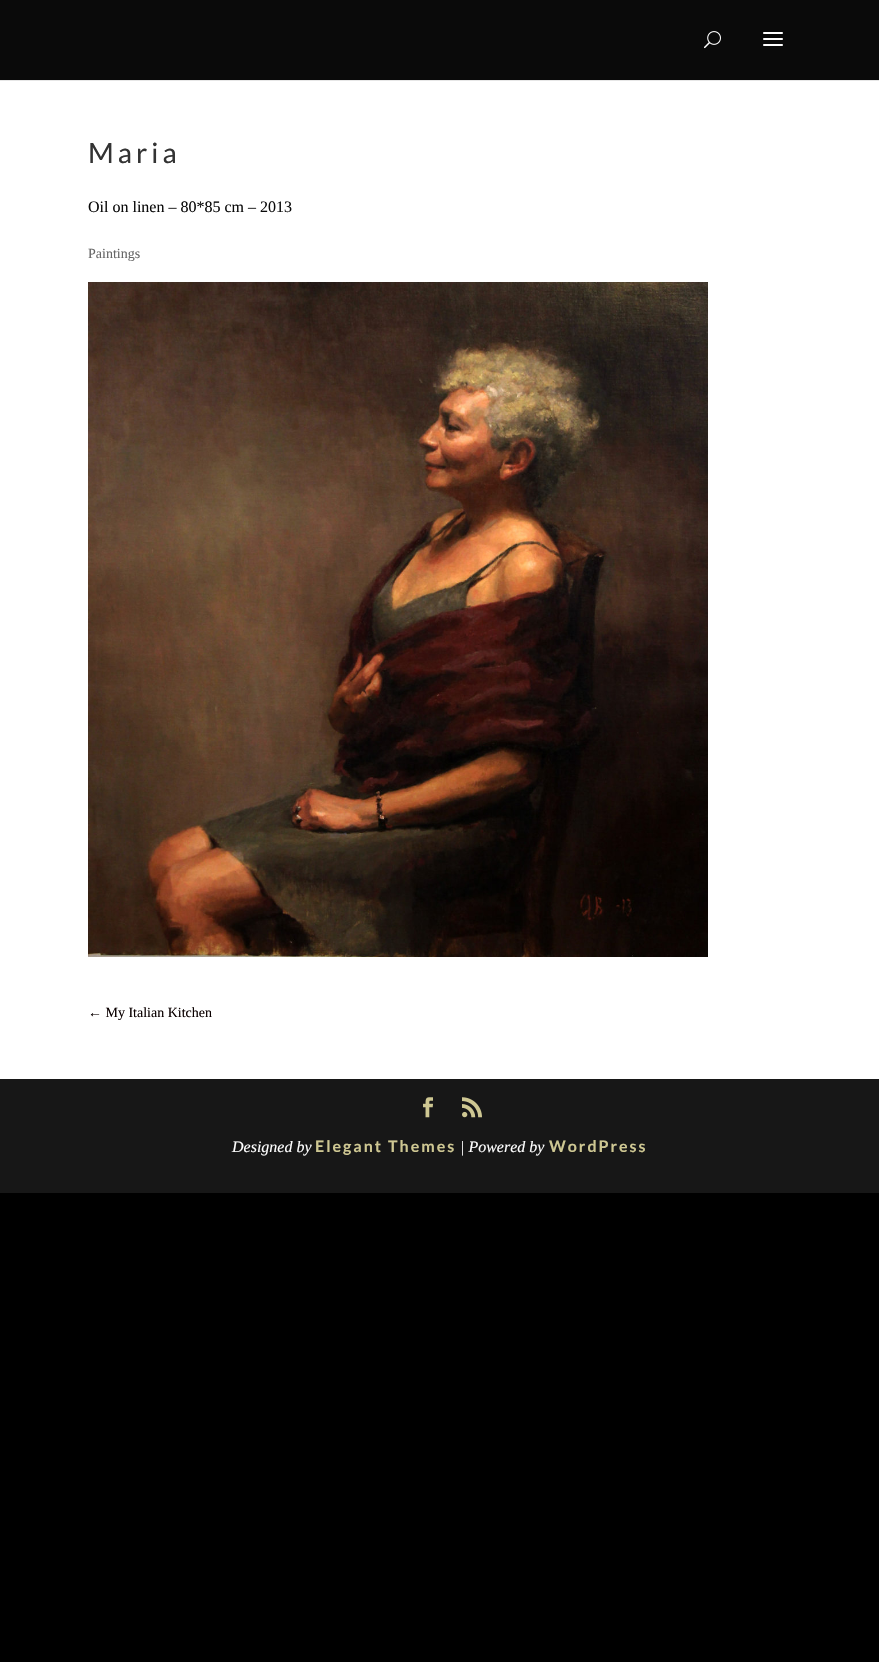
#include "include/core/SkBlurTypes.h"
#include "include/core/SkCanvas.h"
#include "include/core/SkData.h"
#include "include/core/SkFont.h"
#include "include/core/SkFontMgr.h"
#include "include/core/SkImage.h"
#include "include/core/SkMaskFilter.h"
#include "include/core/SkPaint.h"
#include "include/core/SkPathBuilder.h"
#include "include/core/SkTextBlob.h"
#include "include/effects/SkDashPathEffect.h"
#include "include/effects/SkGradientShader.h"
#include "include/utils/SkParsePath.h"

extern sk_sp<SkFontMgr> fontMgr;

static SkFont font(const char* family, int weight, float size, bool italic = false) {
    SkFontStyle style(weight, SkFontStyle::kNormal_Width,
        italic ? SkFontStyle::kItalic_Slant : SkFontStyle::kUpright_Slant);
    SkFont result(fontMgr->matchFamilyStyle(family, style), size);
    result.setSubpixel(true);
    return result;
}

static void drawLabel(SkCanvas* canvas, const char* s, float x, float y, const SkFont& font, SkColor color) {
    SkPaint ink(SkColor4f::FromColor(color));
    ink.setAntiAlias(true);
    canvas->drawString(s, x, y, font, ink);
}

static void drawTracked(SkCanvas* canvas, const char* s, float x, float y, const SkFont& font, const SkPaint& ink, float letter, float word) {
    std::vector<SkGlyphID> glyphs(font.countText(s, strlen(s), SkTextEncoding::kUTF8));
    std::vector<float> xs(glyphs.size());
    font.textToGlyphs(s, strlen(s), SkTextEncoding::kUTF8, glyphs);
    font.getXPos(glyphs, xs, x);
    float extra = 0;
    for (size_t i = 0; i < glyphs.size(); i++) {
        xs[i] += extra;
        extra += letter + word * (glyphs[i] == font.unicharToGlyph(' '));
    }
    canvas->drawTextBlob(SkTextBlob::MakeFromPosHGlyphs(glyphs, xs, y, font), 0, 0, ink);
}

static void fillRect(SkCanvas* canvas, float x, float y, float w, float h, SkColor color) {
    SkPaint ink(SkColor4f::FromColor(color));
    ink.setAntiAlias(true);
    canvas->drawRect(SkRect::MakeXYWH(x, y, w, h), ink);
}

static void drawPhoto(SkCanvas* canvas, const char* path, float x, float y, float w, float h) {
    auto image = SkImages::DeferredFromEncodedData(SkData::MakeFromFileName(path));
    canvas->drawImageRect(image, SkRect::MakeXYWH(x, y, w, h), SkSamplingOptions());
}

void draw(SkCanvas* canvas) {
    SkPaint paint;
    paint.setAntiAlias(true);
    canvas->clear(0xFF000000);
    fillRect(canvas, 0, 81, 879, 998, 0xFFFFFFFF);
    fillRect(canvas, 0, 80, 879, 1, 0xFFE6E6E6);
    fillRect(canvas, 0, 0, 879, 80, 0xFF0A0A0A);
    drawPhoto(canvas, "assets/img1.png", 704, 31, 17, 18);
    drawPhoto(canvas, "assets/img2.png", 763, 32, 20, 14);
    SkFont font1 = font("Lato", 400, 28);
    paint.setColor(0xFF333333);
    drawTracked(canvas, "Maria", 88, 163, font1, paint, 4, 0);
    SkFont font2 = font("Liberation Serif", 400, 16);
    drawLabel(canvas, "Oil on linen – 80*85 cm – 2013", 88, 212, font2, 0xFF0A0A0A);
    SkFont font3 = font("Liberation Serif", 400, 14);
    drawLabel(canvas, "Paintings", 88, 258, font3, 0xFF666666);
    drawPhoto(canvas, "assets/img3.png", 88, 282, 620, 675);
    drawLabel(canvas, "← My Italian Kitchen", 88, 1017, font3, 0xFF0A0000);
    fillRect(canvas, 0, 1079, 879, 114, 0xFF171717);
    drawPhoto(canvas, "assets/img4.png", 423, 1097, 10, 21);
    drawPhoto(canvas, "assets/img5.png", 462, 1097, 20, 21);
    SkFont font4 = font("Liberation Serif", 400, 16, true);
    drawLabel(canvas, "Designed by", 232, 1152, font4, 0xFFFFFFFF);
    SkFont font5 = font("Lato", 700, 16);
    paint.setColor(0xFFCEC792);
    drawTracked(canvas, "Elegant Themes", 315, 1152, font5, paint, 2, 0);
    drawLabel(canvas, "| Powered by", 460, 1152, font4, 0xFFFFFFFF);
    drawTracked(canvas, "WordPress", 549, 1152, font5, paint, 2, 0);
}
